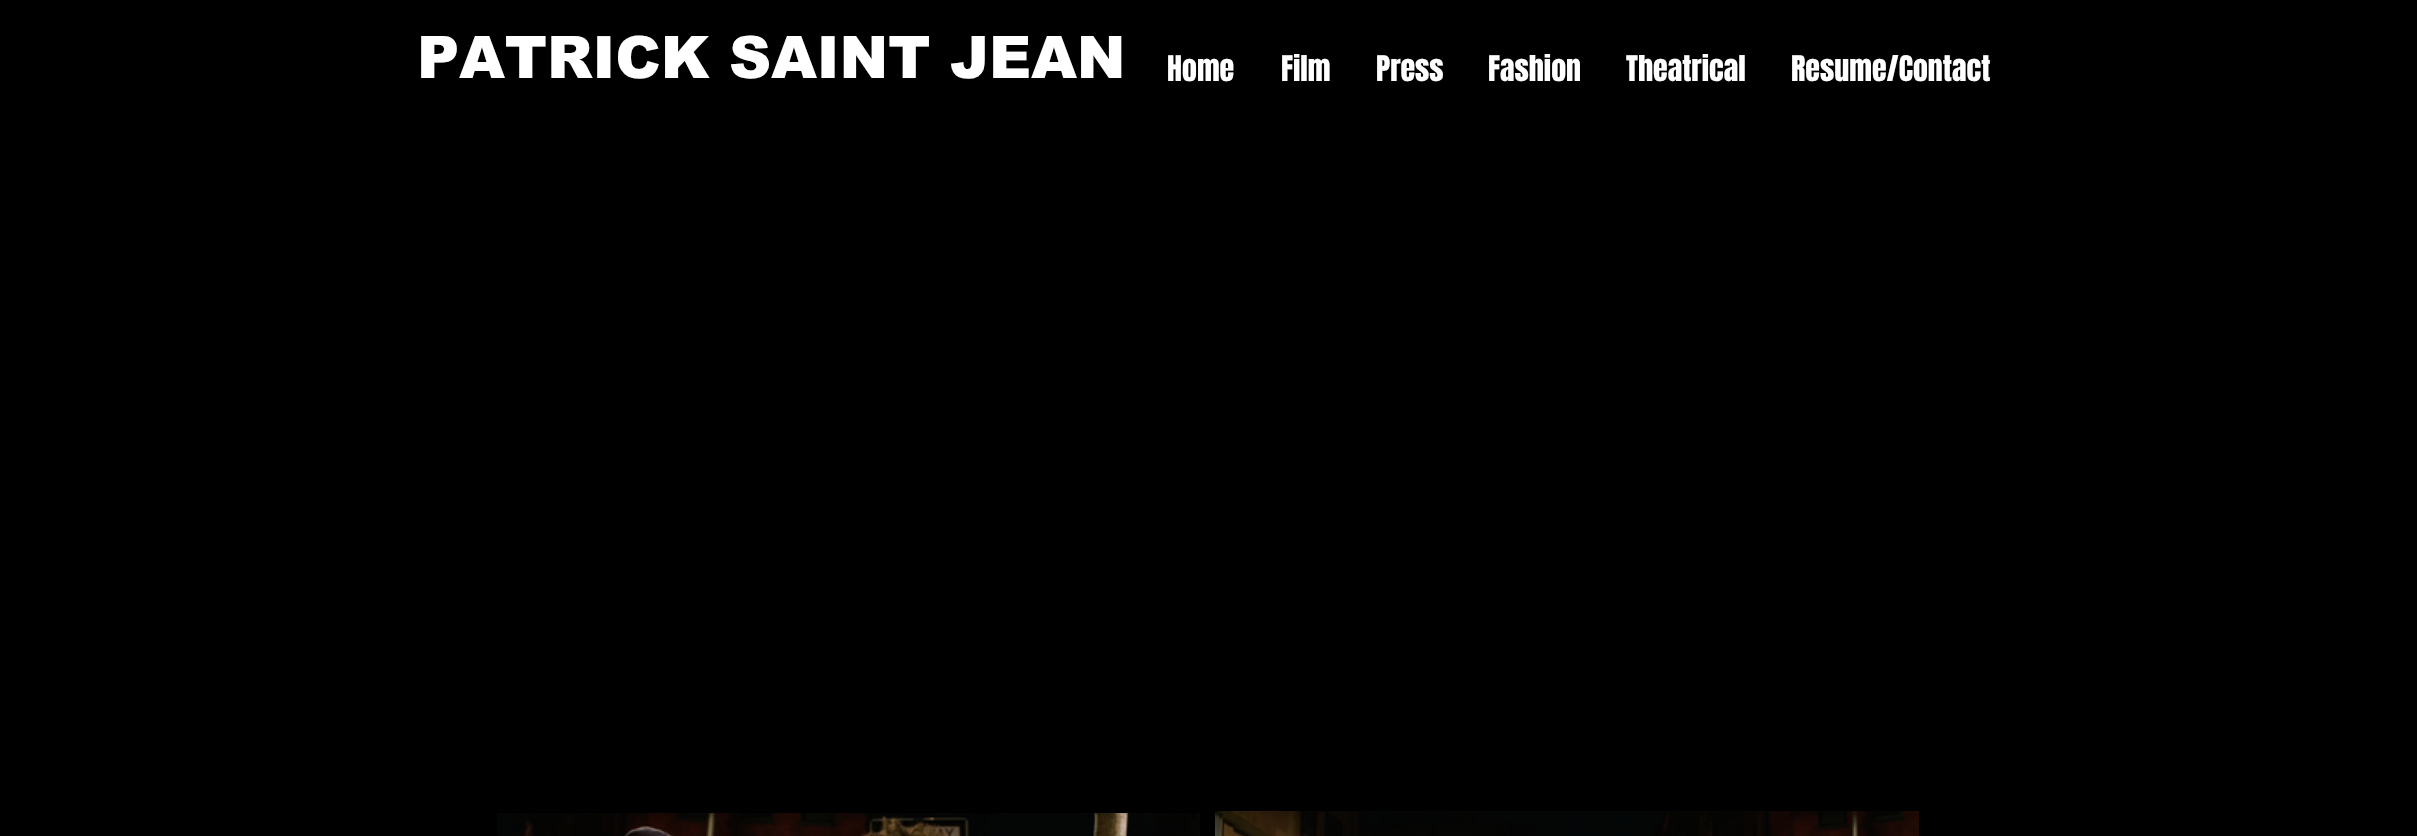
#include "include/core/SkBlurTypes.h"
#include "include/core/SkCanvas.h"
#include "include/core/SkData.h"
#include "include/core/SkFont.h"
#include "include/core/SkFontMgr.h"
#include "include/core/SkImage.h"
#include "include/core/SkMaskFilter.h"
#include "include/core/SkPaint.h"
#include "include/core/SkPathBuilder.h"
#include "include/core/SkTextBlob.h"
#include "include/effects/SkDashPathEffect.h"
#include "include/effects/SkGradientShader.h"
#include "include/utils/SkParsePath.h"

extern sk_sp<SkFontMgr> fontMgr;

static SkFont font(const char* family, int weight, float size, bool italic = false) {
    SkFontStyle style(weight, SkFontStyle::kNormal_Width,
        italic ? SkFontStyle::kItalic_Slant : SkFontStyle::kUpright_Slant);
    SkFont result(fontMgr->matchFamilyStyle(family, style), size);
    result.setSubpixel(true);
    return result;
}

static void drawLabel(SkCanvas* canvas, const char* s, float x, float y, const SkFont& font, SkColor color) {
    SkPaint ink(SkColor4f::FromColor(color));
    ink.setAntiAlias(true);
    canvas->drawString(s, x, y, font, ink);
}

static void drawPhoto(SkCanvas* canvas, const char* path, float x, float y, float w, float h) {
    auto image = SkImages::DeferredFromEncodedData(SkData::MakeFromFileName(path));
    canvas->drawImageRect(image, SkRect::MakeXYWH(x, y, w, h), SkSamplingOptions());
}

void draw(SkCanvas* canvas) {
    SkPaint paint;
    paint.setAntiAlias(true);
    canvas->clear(0xFF000000);
    SkFont font1 = font("arial", 900, 58.5f);
    drawLabel(canvas, "PATRICK SAINT JEAN", 417, 78, font1, 0xFFFFFFFF);
    SkFont font2 = font("Anton", 400, 30);
    drawLabel(canvas, "Home", 1167, 81, font2, 0xFFFFFFFF);
    drawLabel(canvas, "Film", 1281, 81, font2, 0xFFFFFFFF);
    drawLabel(canvas, "Press", 1376, 81, font2, 0xFFFFFFFF);
    drawLabel(canvas, "Fashion", 1488, 81, font2, 0xFFFFFFFF);
    drawLabel(canvas, "Theatrical", 1626, 81, font2, 0xFFFFFFFF);
    drawLabel(canvas, "Resume/Contact", 1791, 81, font2, 0xFFFFFFFF);
    drawPhoto(canvas, "assets/img1.png", 497, 813, 703, 23);
    drawPhoto(canvas, "assets/img2.png", 1215, 811, 704, 25);
}
